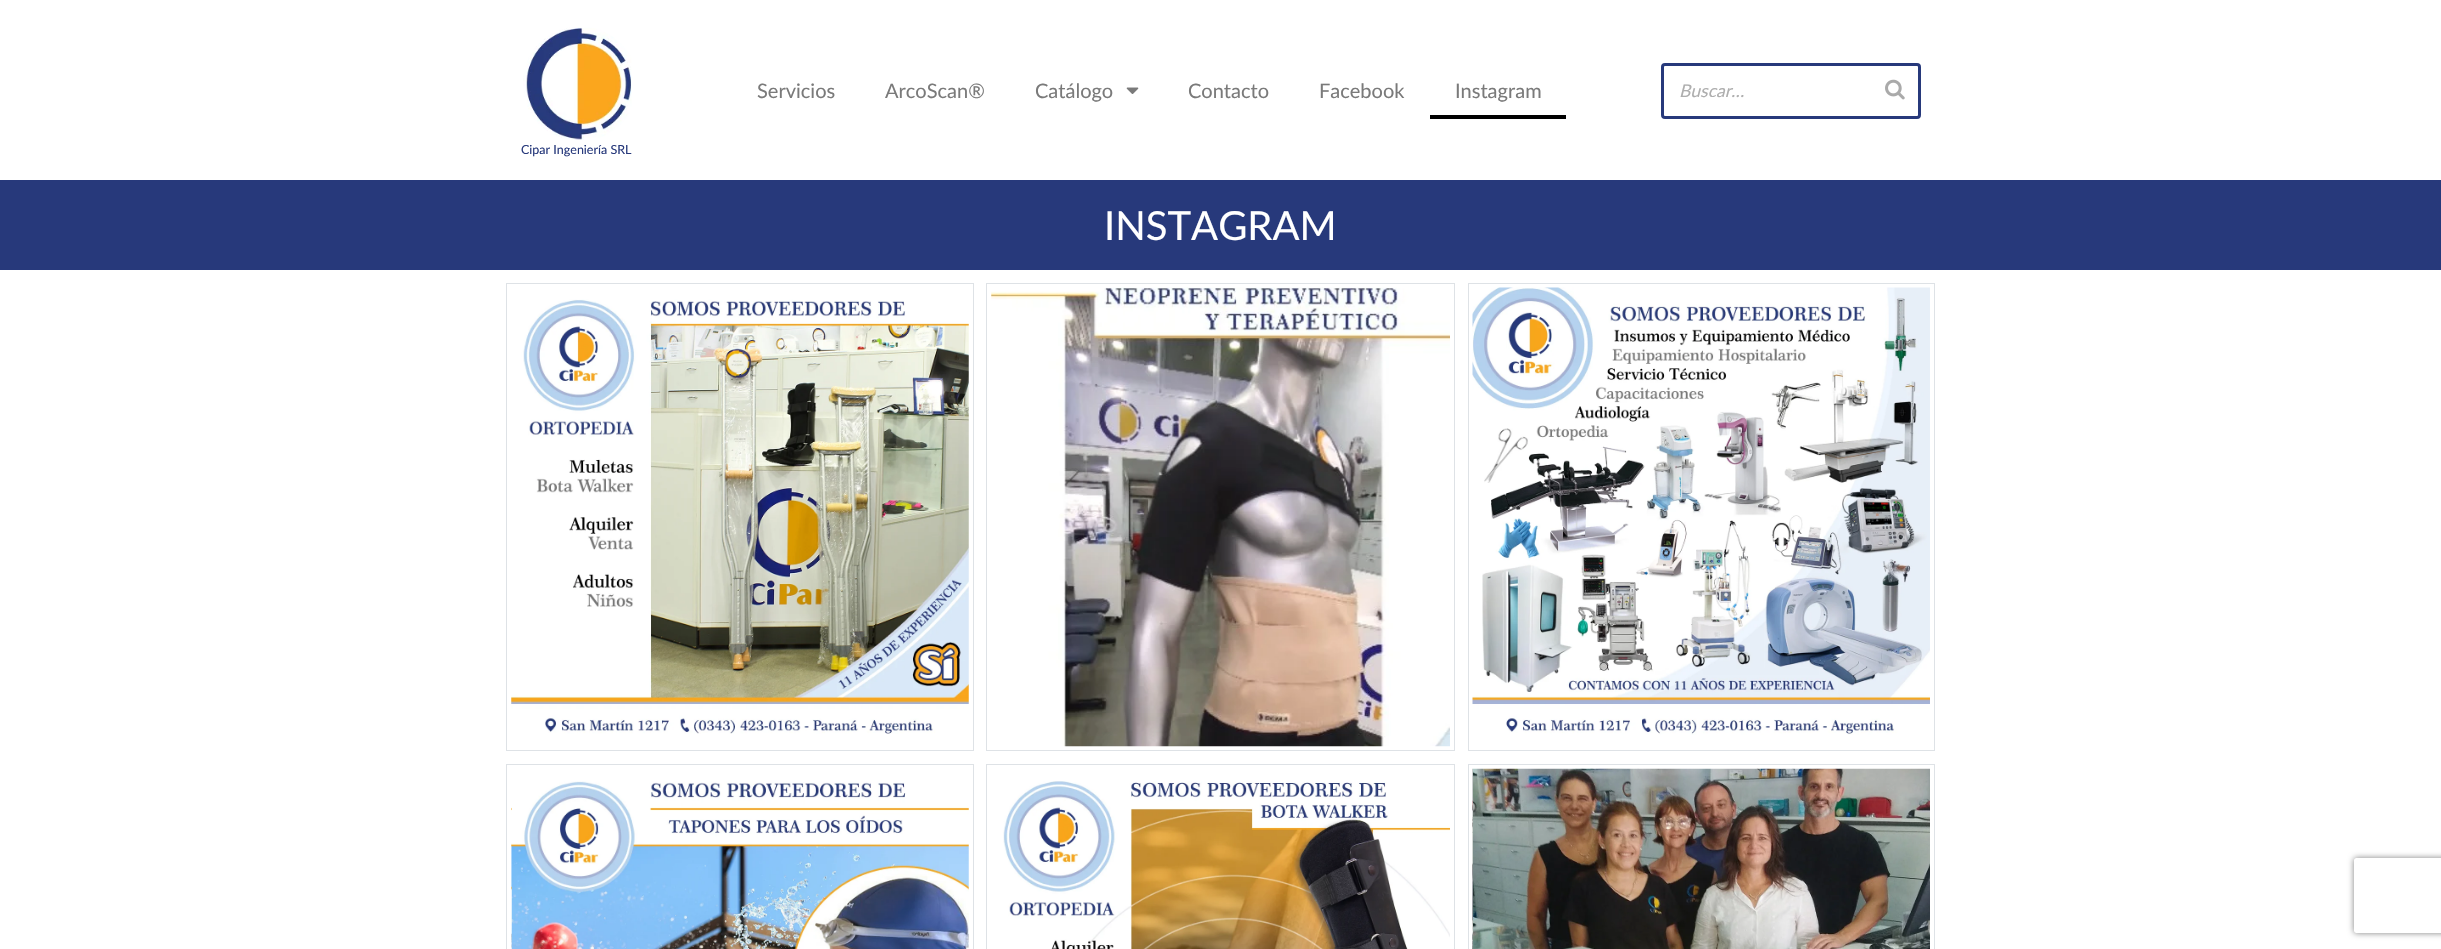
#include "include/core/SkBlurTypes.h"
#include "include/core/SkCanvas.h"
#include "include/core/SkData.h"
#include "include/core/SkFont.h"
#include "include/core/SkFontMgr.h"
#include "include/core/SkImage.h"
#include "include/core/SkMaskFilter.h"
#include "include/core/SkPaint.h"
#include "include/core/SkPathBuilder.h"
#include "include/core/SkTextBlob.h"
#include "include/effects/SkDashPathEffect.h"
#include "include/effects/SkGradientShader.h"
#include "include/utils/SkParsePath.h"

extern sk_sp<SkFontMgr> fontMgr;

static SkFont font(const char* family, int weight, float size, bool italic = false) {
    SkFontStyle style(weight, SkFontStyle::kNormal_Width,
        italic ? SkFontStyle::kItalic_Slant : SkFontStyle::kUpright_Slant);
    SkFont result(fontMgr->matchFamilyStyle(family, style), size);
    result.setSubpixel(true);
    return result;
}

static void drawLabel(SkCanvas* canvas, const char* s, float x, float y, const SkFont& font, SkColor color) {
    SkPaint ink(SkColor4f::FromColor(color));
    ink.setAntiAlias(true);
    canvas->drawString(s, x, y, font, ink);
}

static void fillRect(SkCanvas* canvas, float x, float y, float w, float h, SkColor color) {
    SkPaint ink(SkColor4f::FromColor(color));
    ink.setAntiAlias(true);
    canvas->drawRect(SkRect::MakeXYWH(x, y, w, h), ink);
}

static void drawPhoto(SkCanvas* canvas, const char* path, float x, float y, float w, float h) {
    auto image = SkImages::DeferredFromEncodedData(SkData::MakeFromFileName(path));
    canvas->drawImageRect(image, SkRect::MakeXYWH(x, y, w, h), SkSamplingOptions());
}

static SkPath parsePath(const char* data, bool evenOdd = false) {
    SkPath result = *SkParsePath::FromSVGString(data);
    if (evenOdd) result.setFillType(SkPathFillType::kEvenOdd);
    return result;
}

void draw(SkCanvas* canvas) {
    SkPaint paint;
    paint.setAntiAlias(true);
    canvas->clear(0xFFFFFFFF);
    SkFont font1 = font("Lato", 400, 20);
    drawLabel(canvas, "Servicios", 757, 98, font1, 0xFF7A7A7A);
    drawLabel(canvas, "ArcoScan®", 885, 98, font1, 0xFF7A7A7A);
    drawLabel(canvas, "Catálogo", 1035, 98, font1, 0xFF7A7A7A);
    drawPhoto(canvas, "assets/img1.png", 1126, 87, 13, 7);
    drawLabel(canvas, "Contacto", 1188, 98, font1, 0xFF7A7A7A);
    drawLabel(canvas, "Facebook", 1319, 98, font1, 0xFF7A7A7A);
    drawLabel(canvas, "Instagram", 1455, 98, font1, 0xFF7A7A7A);
    fillRect(canvas, 1430, 115, 136, 4, 0xFF000000);
    paint.setStroke(true);
    paint.setStrokeWidth(3);
    paint.setColor(0xFF27397B);
    canvas->drawRoundRect(SkRect::MakeXYWH(1662.5f, 64.5f, 257, 53), 2.5f, 2.5f, paint);
    SkFont font2 = font("Lato", 400, 17.5f, true);
    drawLabel(canvas, "Buscar…", 1679, 97, font2, 0xFFAEAEAE);
    drawPhoto(canvas, "assets/img2.png", 1885, 79, 20, 21);
    drawPhoto(canvas, "assets/img3.png", 523, 27, 109, 113);
    SkFont font3 = font("Lato", 400, 12.5f);
    drawLabel(canvas, "Cipar Ingeniería SRL", 521, 154, font3, 0xFF27397B);
    fillRect(canvas, 0, 180, 2441, 90, 0xFF27397B);
    SkFont font4 = font("Lato", 400, 40);
    drawLabel(canvas, "INSTAGRAM", 1104, 240, font4, 0xFFFFFFFF);
    paint.setStrokeWidth(1);
    paint.setColor(0xFFDEE2E6);
    canvas->drawRect(SkRect::MakeXYWH(506.5f, 283.5f, 467, 467), paint);
    drawPhoto(canvas, "assets/img4.png", 511, 299, 458, 435);
    canvas->drawRect(SkRect::MakeXYWH(986.5f, 283.5f, 468, 467), paint);
    drawPhoto(canvas, "assets/img5.png", 991, 287, 459, 460);
    canvas->drawRect(SkRect::MakeXYWH(1468.5f, 283.5f, 466, 467), paint);
    drawPhoto(canvas, "assets/img6.png", 1472, 287, 458, 448);
    canvas->drawRect(SkRect::MakeXYWH(506.5f, 764.5f, 467, 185), paint);
    drawPhoto(canvas, "assets/img7.png", 511, 781, 458, 168);
    canvas->drawRect(SkRect::MakeXYWH(986.5f, 764.5f, 468, 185), paint);
    drawPhoto(canvas, "assets/img8.png", 1003, 781, 447, 168);
    canvas->drawRect(SkRect::MakeXYWH(1468.5f, 764.5f, 466, 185), paint);
    drawPhoto(canvas, "assets/img9.png", 1472, 768, 458, 181);
    canvas->save();
    canvas->clipPath(parsePath("M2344 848H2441V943H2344ZM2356.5 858H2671.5C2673 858 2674 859 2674 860.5V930.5C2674 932 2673 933 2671.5 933H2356.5C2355 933 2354 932 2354 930.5V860.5C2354 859 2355 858 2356.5 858Z", true), true);
    paint.setStroke(false);
    paint.setColor(0xFF808080);
    paint.setMaskFilter(SkMaskFilter::MakeBlur(kNormal_SkBlurStyle, 3));
    canvas->drawRoundRect(SkRect::MakeXYWH(2354, 858, 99, 75), 2.5f, 2.5f, paint);
    paint.setMaskFilter(nullptr);
    canvas->restore();
}
